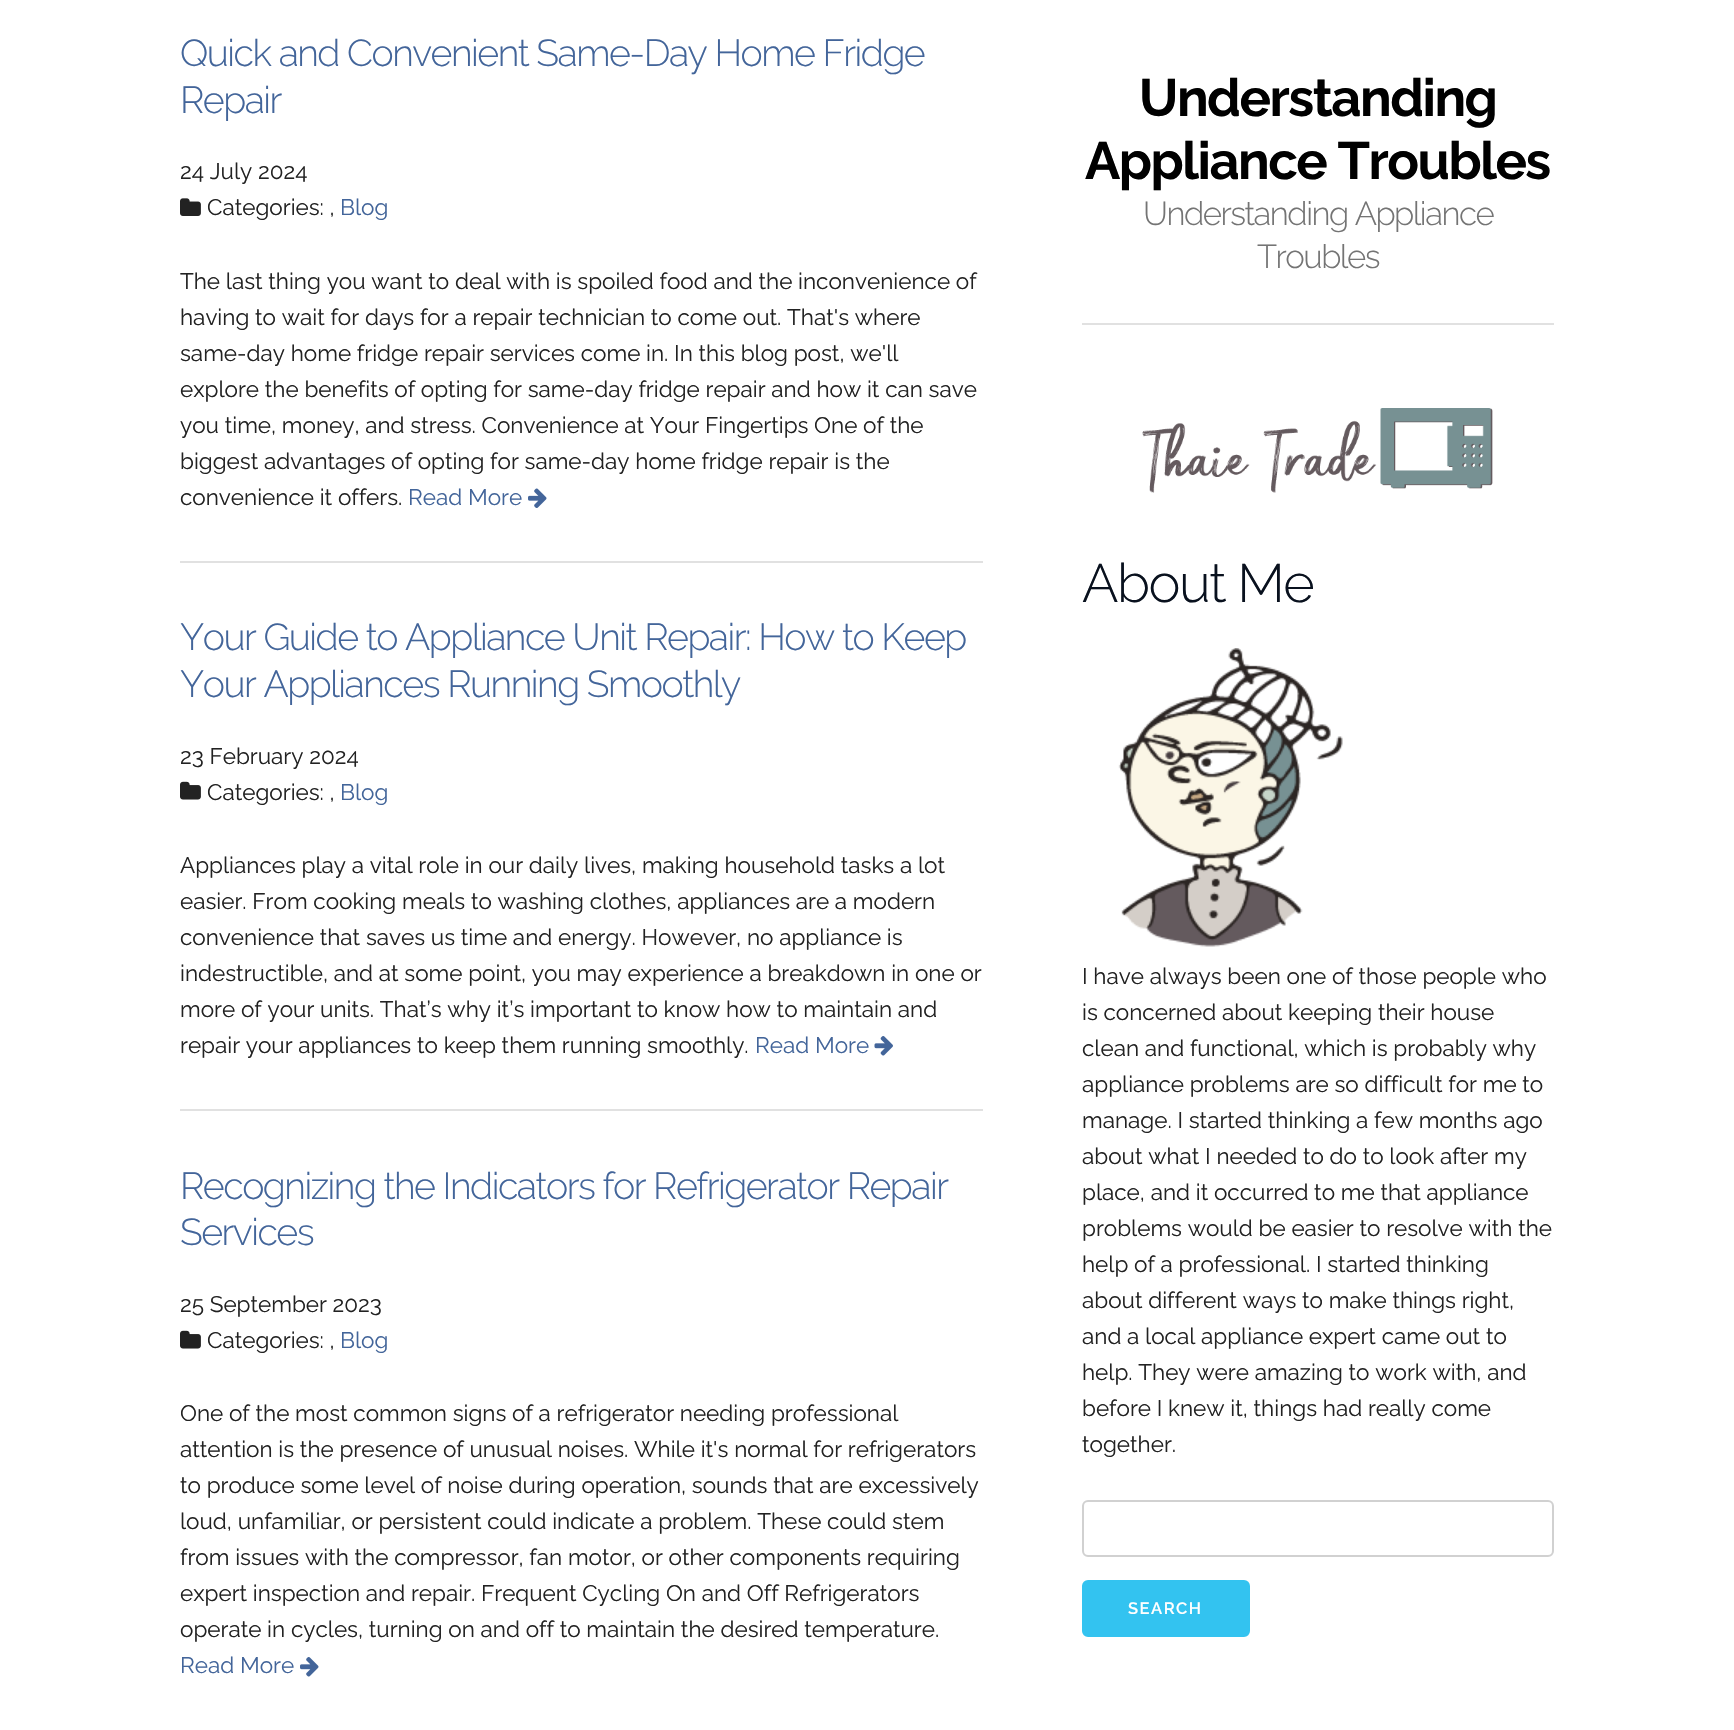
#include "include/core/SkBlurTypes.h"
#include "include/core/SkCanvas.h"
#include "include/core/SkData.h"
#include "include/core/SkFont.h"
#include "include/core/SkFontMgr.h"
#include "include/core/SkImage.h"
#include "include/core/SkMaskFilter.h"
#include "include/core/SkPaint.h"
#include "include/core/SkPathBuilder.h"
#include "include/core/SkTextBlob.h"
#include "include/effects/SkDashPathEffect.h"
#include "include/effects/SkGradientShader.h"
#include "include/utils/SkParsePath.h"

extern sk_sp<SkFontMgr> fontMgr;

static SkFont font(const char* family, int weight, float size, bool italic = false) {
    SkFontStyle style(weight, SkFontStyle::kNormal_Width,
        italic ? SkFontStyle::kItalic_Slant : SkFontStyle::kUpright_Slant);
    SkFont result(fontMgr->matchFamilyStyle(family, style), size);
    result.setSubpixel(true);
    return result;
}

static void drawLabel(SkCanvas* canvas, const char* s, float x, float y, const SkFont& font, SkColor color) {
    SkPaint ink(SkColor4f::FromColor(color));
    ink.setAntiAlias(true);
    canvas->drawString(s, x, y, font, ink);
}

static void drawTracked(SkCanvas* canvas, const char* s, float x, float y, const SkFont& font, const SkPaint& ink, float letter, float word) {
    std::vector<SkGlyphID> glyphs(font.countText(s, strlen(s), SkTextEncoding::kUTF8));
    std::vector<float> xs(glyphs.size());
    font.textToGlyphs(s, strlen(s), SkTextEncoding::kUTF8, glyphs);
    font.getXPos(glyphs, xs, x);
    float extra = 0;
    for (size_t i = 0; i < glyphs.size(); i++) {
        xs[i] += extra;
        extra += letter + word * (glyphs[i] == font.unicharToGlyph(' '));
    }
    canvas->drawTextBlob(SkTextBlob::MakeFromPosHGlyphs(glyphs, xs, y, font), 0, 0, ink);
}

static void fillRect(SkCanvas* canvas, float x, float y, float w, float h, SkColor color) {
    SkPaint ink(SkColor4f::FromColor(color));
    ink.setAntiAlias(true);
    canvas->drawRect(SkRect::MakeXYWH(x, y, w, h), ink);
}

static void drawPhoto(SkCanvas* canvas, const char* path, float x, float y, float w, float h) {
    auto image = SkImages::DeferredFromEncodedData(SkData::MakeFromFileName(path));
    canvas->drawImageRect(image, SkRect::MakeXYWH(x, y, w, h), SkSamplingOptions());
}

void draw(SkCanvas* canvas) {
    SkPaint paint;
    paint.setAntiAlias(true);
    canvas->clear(0xFFFFFFFF);
    SkFont font1 = font("Raleway", 300, 37.5f);
    paint.setColor(0xFF43659A);
    drawTracked(canvas, "Quick and Convenient Same-Day Home Fridge", 180, 66, font1, paint, -1.5f, 0);
    drawTracked(canvas, "Repair", 180, 113, font1, paint, -1.5f, 0);
    SkFont font2 = font("Raleway", 400, 22.5f);
    drawLabel(canvas, "24 July 2024", 180, 179, font2, 0xFF222222);
    drawPhoto(canvas, "assets/img1.png", 180, 198, 21, 18);
    drawLabel(canvas, "Categories: ,", 207, 215, font2, 0xFF222222);
    drawLabel(canvas, "Blog", 340, 215, font2, 0xFF43659A);
    drawLabel(canvas, "The last thing you want to deal with is spoiled food and the inconvenience of", 180, 289, font2, 0xFF222222);
    drawLabel(canvas, "having to wait for days for a repair technician to come out. That's where", 180, 325, font2, 0xFF222222);
    drawLabel(canvas, "same-day home fridge repair services come in. In this blog post, we'll", 180, 361, font2, 0xFF222222);
    drawLabel(canvas, "explore the benefits of opting for same-day fridge repair and how it can save", 180, 397, font2, 0xFF222222);
    drawLabel(canvas, "you time, money, and stress. Convenience at Your Fingertips One of the", 180, 433, font2, 0xFF222222);
    drawLabel(canvas, "biggest advantages of opting for same-day home fridge repair is the", 180, 469, font2, 0xFF222222);
    drawLabel(canvas, "convenience it offers.", 180, 505, font2, 0xFF222222);
    drawLabel(canvas, "Read More", 408, 505, font2, 0xFF43659A);
    drawPhoto(canvas, "assets/img2.png", 528, 488, 19, 20);
    fillRect(canvas, 180, 561, 803, 2, 0xFFE1E1E1);
    drawTracked(canvas, "Your Guide to Appliance Unit Repair: How to Keep", 180, 650, font1, paint, -1.5f, 0);
    drawTracked(canvas, "Your Appliances Running Smoothly", 180, 697, font1, paint, -1.5f, 0);
    drawLabel(canvas, "23 February 2024", 180, 764, font2, 0xFF222222);
    drawPhoto(canvas, "assets/img3.png", 180, 781, 21, 19);
    drawLabel(canvas, "Categories: ,", 207, 800, font2, 0xFF222222);
    drawLabel(canvas, "Blog", 340, 800, font2, 0xFF43659A);
    drawLabel(canvas, "Appliances play a vital role in our daily lives, making household tasks a lot", 180, 873, font2, 0xFF222222);
    drawLabel(canvas, "easier. From cooking meals to washing clothes, appliances are a modern", 180, 909, font2, 0xFF222222);
    drawLabel(canvas, "convenience that saves us time and energy. However, no appliance is", 180, 945, font2, 0xFF222222);
    drawLabel(canvas, "indestructible, and at some point, you may experience a breakdown in one or", 180, 981, font2, 0xFF222222);
    drawLabel(canvas, "more of your units. That’s why it’s important to know how to maintain and", 180, 1017, font2, 0xFF222222);
    drawLabel(canvas, "repair your appliances to keep them running smoothly.", 180, 1053, font2, 0xFF222222);
    drawLabel(canvas, "Read More", 755, 1053, font2, 0xFF43659A);
    drawPhoto(canvas, "assets/img4.png", 874, 1036, 19, 20);
    fillRect(canvas, 180, 1109, 803, 2, 0xFFE1E1E1);
    drawTracked(canvas, "Recognizing the Indicators for Refrigerator Repair", 180, 1199, font1, paint, -1.5f, 0);
    drawTracked(canvas, "Services", 180, 1245, font1, paint, -1.5f, 0);
    drawLabel(canvas, "25 September 2023", 180, 1312, font2, 0xFF222222);
    drawPhoto(canvas, "assets/img3.png", 180, 1330, 21, 19);
    drawLabel(canvas, "Categories: ,", 207, 1348, font2, 0xFF222222);
    drawLabel(canvas, "Blog", 340, 1348, font2, 0xFF43659A);
    drawLabel(canvas, "One of the most common signs of a refrigerator needing professional", 180, 1421, font2, 0xFF222222);
    drawLabel(canvas, "attention is the presence of unusual noises. While it's normal for refrigerators", 180, 1457, font2, 0xFF222222);
    drawLabel(canvas, "to produce some level of noise during operation, sounds that are excessively", 180, 1493, font2, 0xFF222222);
    drawLabel(canvas, "loud, unfamiliar, or persistent could indicate a problem. These could stem", 180, 1529, font2, 0xFF222222);
    drawLabel(canvas, "from issues with the compressor, fan motor, or other components requiring", 180, 1565, font2, 0xFF222222);
    drawLabel(canvas, "expert inspection and repair. Frequent Cycling On and Off Refrigerators", 180, 1601, font2, 0xFF222222);
    drawLabel(canvas, "operate in cycles, turning on and off to maintain the desired temperature.", 180, 1637, font2, 0xFF222222);
    drawLabel(canvas, "Read More", 180, 1673, font2, 0xFF43659A);
    drawPhoto(canvas, "assets/img5.png", 300, 1657, 19, 20);
    SkFont font3 = font("Raleway", 700, 52.5f);
    paint.setColor(0xFF000000);
    drawTracked(canvas, "Understanding", 1139, 116, font3, paint, -1.5f, 0);
    drawTracked(canvas, "Appliance Troubles", 1085, 179, font3, paint, -1.5f, 0);
    SkFont font4 = font("Raleway", 300, 33);
    paint.setColor(0xFF747474);
    drawTracked(canvas, "Understanding Appliance", 1143, 225, font4, paint, -1.5f, 0);
    drawTracked(canvas, "Troubles", 1257, 268, font4, paint, -1.5f, 0);
    fillRect(canvas, 1082, 323, 472, 2, 0xFFE1E1E1);
    drawPhoto(canvas, "assets/img6.png", 1142, 408, 351, 85);
    SkFont font5 = font("Raleway", 300, 54);
    paint.setColor(0xFF09111E);
    drawTracked(canvas, "About Me", 1082, 602, font5, paint, -1.5f, 0);
    drawPhoto(canvas, "assets/img7.png", 1118, 648, 225, 299);
    drawLabel(canvas, "I have always been one of those people who", 1082, 984, font2, 0xFF222222);
    drawLabel(canvas, "is concerned about keeping their house", 1082, 1020, font2, 0xFF222222);
    drawLabel(canvas, "clean and functional, which is probably why", 1082, 1056, font2, 0xFF222222);
    drawLabel(canvas, "appliance problems are so difficult for me to", 1082, 1092, font2, 0xFF222222);
    drawLabel(canvas, "manage. I started thinking a few months ago", 1082, 1128, font2, 0xFF222222);
    drawLabel(canvas, "about what I needed to do to look after my", 1082, 1164, font2, 0xFF222222);
    drawLabel(canvas, "place, and it occurred to me that appliance", 1082, 1200, font2, 0xFF222222);
    drawLabel(canvas, "problems would be easier to resolve with the", 1082, 1236, font2, 0xFF222222);
    drawLabel(canvas, "help of a professional. I started thinking", 1082, 1272, font2, 0xFF222222);
    drawLabel(canvas, "about different ways to make things right,", 1082, 1308, font2, 0xFF222222);
    drawLabel(canvas, "and a local appliance expert came out to", 1082, 1344, font2, 0xFF222222);
    drawLabel(canvas, "help. They were amazing to work with, and", 1082, 1380, font2, 0xFF222222);
    drawLabel(canvas, "before I knew it, things had really come", 1082, 1416, font2, 0xFF222222);
    drawLabel(canvas, "together.", 1082, 1452, font2, 0xFF222222);
    paint.setStroke(true);
    paint.setStrokeWidth(2);
    paint.setColor(0xFFD1D1D1);
    canvas->drawRoundRect(SkRect::MakeXYWH(1083, 1501, 470, 55), 5, 5, paint);
    paint.setStroke(false);
    paint.setColor(0xFF33C3F0);
    canvas->drawRoundRect(SkRect::MakeXYWH(1083, 1581, 166, 55), 5, 5, paint);
    paint.setStroke(true);
    canvas->drawRoundRect(SkRect::MakeXYWH(1083, 1581, 166, 55), 5, 5, paint);
    SkFont font6 = font("Raleway", 600, 16.5f);
    paint.setStroke(false);
    paint.setColor(0xFFFFFFFF);
    drawTracked(canvas, "SEARCH", 1128, 1614, font6, paint, 1.5f, 0);
}
